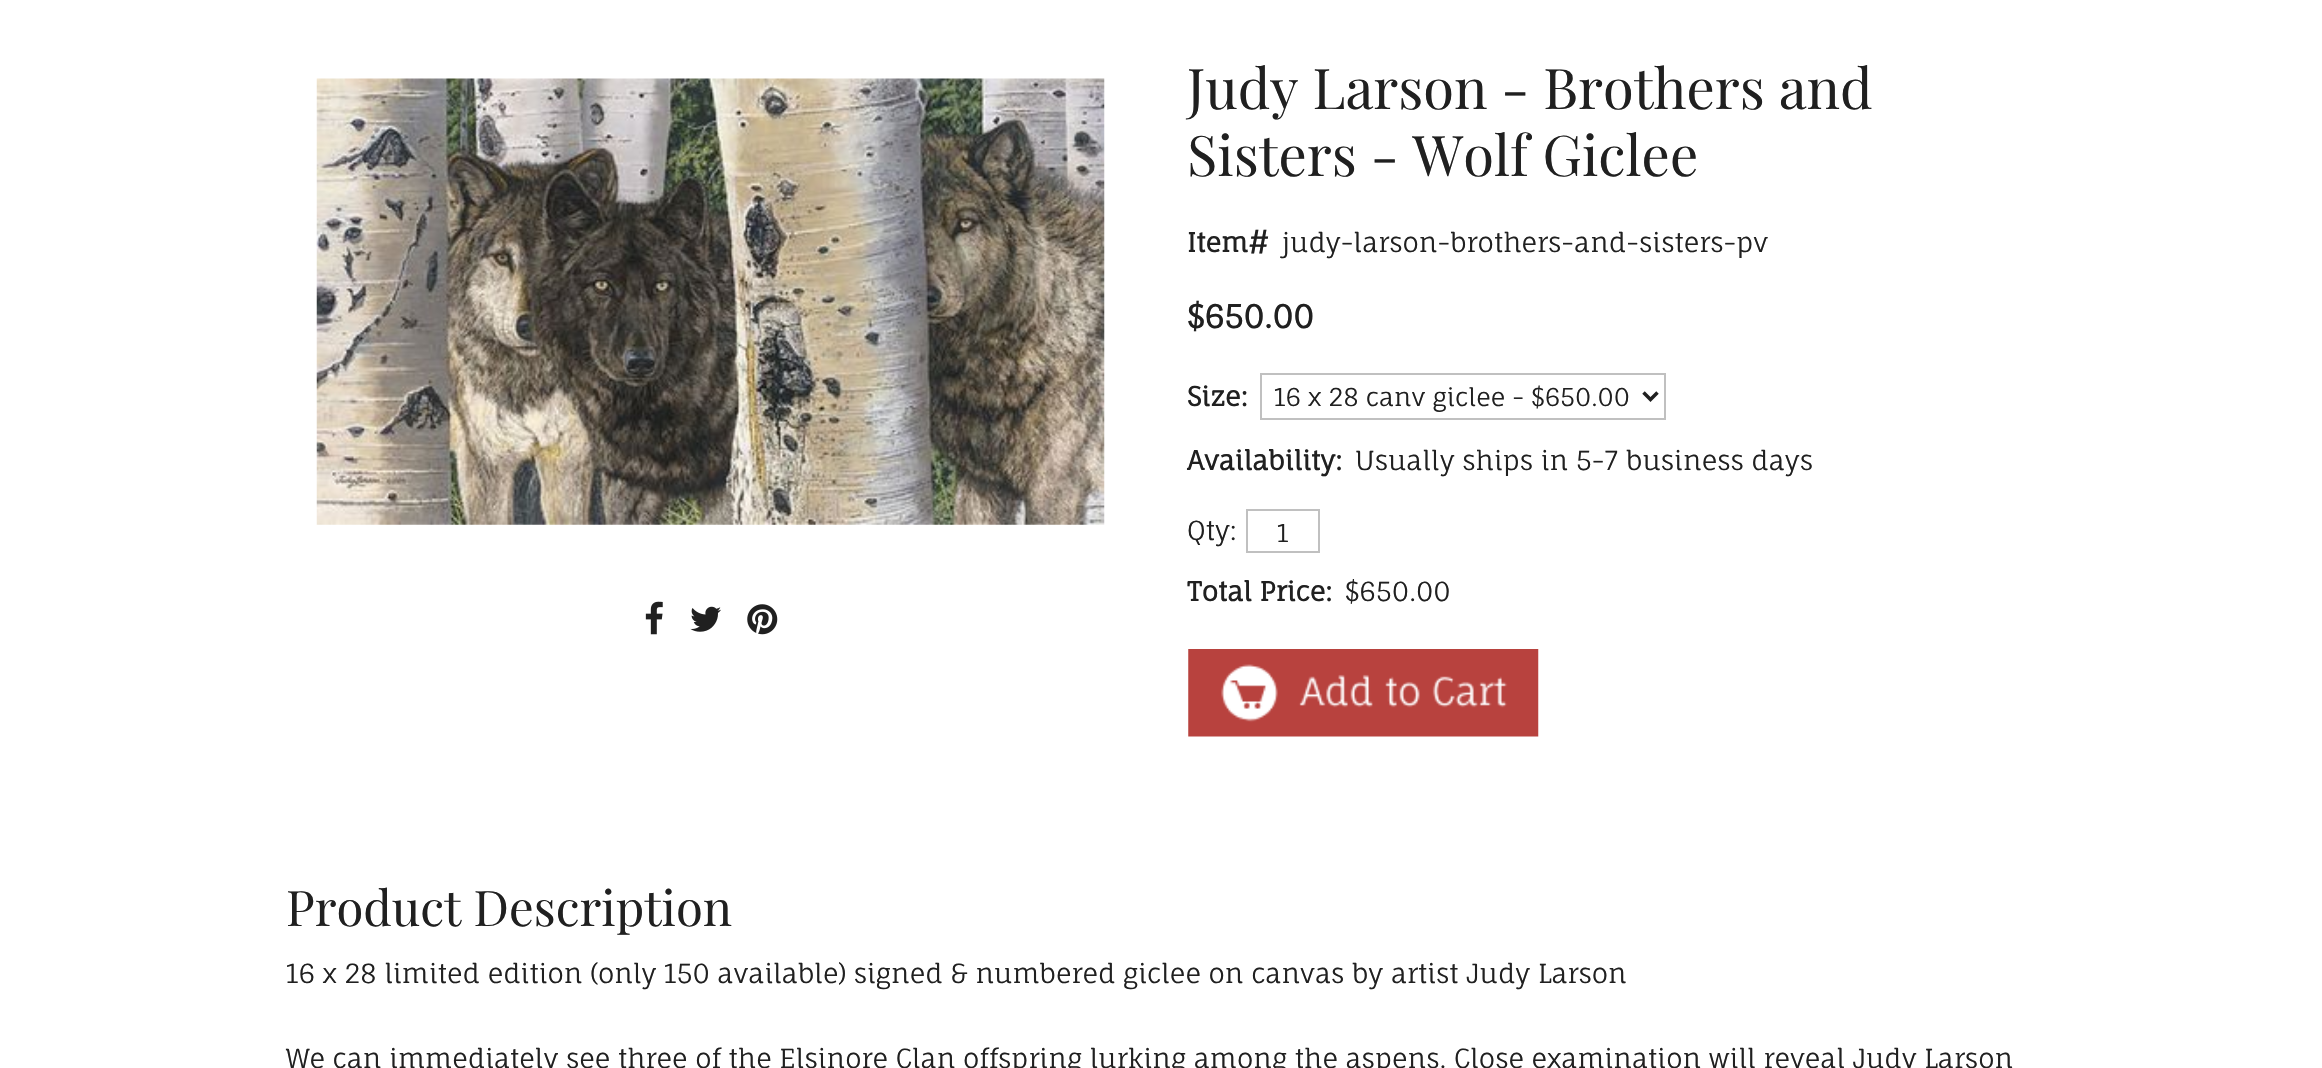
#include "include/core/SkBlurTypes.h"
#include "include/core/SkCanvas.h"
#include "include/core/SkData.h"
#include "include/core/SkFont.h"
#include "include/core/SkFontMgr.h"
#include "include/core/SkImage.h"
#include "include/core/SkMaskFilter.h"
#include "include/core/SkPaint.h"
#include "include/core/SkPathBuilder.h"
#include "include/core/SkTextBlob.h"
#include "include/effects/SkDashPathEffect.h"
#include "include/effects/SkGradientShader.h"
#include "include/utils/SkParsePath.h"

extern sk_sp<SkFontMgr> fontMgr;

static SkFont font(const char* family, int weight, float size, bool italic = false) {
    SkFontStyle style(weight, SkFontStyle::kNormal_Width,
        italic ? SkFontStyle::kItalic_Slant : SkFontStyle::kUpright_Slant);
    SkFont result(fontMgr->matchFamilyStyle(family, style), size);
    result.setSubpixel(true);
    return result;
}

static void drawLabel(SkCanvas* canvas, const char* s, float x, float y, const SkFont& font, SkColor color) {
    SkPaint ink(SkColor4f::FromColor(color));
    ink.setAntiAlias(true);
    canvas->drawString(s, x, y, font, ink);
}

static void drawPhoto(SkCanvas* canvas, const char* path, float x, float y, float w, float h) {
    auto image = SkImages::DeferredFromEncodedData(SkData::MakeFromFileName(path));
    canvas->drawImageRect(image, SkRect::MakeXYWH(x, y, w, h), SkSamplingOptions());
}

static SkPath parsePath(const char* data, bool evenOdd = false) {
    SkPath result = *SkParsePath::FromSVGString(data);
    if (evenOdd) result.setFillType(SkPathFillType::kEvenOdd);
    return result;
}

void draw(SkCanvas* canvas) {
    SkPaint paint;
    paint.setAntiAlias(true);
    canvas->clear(0xFFFFFFFF);
    drawPhoto(canvas, "assets/img1.png", 316, 78, 789, 447);
    drawPhoto(canvas, "assets/img2.png", 645, 601, 18, 34);
    drawPhoto(canvas, "assets/img3.png", 690, 606, 31, 26);
    drawPhoto(canvas, "assets/img4.png", 747, 604, 31, 31);
    SkFont font1 = font("Playfair Display", 400, 56);
    drawLabel(canvas, "Judy Larson - Brothers and", 1187, 109, font1, 0xFF202020);
    drawLabel(canvas, "Sisters - Wolf Giclee", 1187, 176, font1, 0xFF202020);
    SkFont font2 = font("Fauna One", 700, 26.25f);
    drawLabel(canvas, "Item#", 1187, 252, font2, 0xFF202020);
    SkFont font3 = font("Fauna One", 400, 26.25f);
    drawLabel(canvas, "judy-larson-brothers-and-sisters-pv", 1282, 252, font3, 0xFF202020);
    SkFont font4 = font("Fauna One", 700, 31.5f);
    drawLabel(canvas, "$650.00", 1187, 328, font4, 0xFF202020);
    drawLabel(canvas, "Size:", 1187, 406, font2, 0xFF202020);
    paint.setStroke(true);
    paint.setStrokeWidth(2);
    paint.setColor(0xFFC0C0C0);
    canvas->drawRect(SkRect::MakeXYWH(1261, 374, 404, 45), paint);
    paint.setStrokeWidth(3.5f);
    paint.setColor(0xFF202020);
    canvas->drawPath(parsePath("M1643.5 392.5L1650.5 399.5L1657.5 392.5"), paint);
    SkFont font5 = font("Fauna One", 400, 24.5f);
    drawLabel(canvas, "16 x 28 canv giclee - $650.00", 1274, 406, font5, 0xFF202020);
    drawLabel(canvas, "Availability:", 1187, 470, font2, 0xFF202020);
    drawLabel(canvas, "Usually ships in 5-7 business days", 1355, 470, font3, 0xFF202020);
    drawLabel(canvas, "Qty:", 1187, 540, font3, 0xFF202020);
    paint.setStrokeWidth(2);
    paint.setColor(0xFFC0C0C0);
    canvas->drawRect(SkRect::MakeXYWH(1247, 510, 72, 42), paint);
    drawLabel(canvas, "1", 1277, 542, font5, 0xFF202020);
    drawLabel(canvas, "Total Price:", 1187, 601, font2, 0xFF202020);
    drawLabel(canvas, "$650.00", 1345, 601, font3, 0xFF202020);
    drawPhoto(canvas, "assets/img5.png", 1188, 649, 351, 88);
    SkFont font6 = font("Playfair Display", 400, 49);
    drawLabel(canvas, "Product Description", 286, 926, font6, 0xFF202020);
    drawLabel(canvas, "16 x 28 limited edition (only 150 available) signed & numbered giclee on canvas by artist Judy Larson", 286, 983, font3, 0xFF202020);
    drawLabel(canvas, "We can immediately see three of the Elsinore Clan offspring lurking among the aspens. Close examination will reveal Judy Larson", 286, 1068, font3, 0xFF202020);
}
